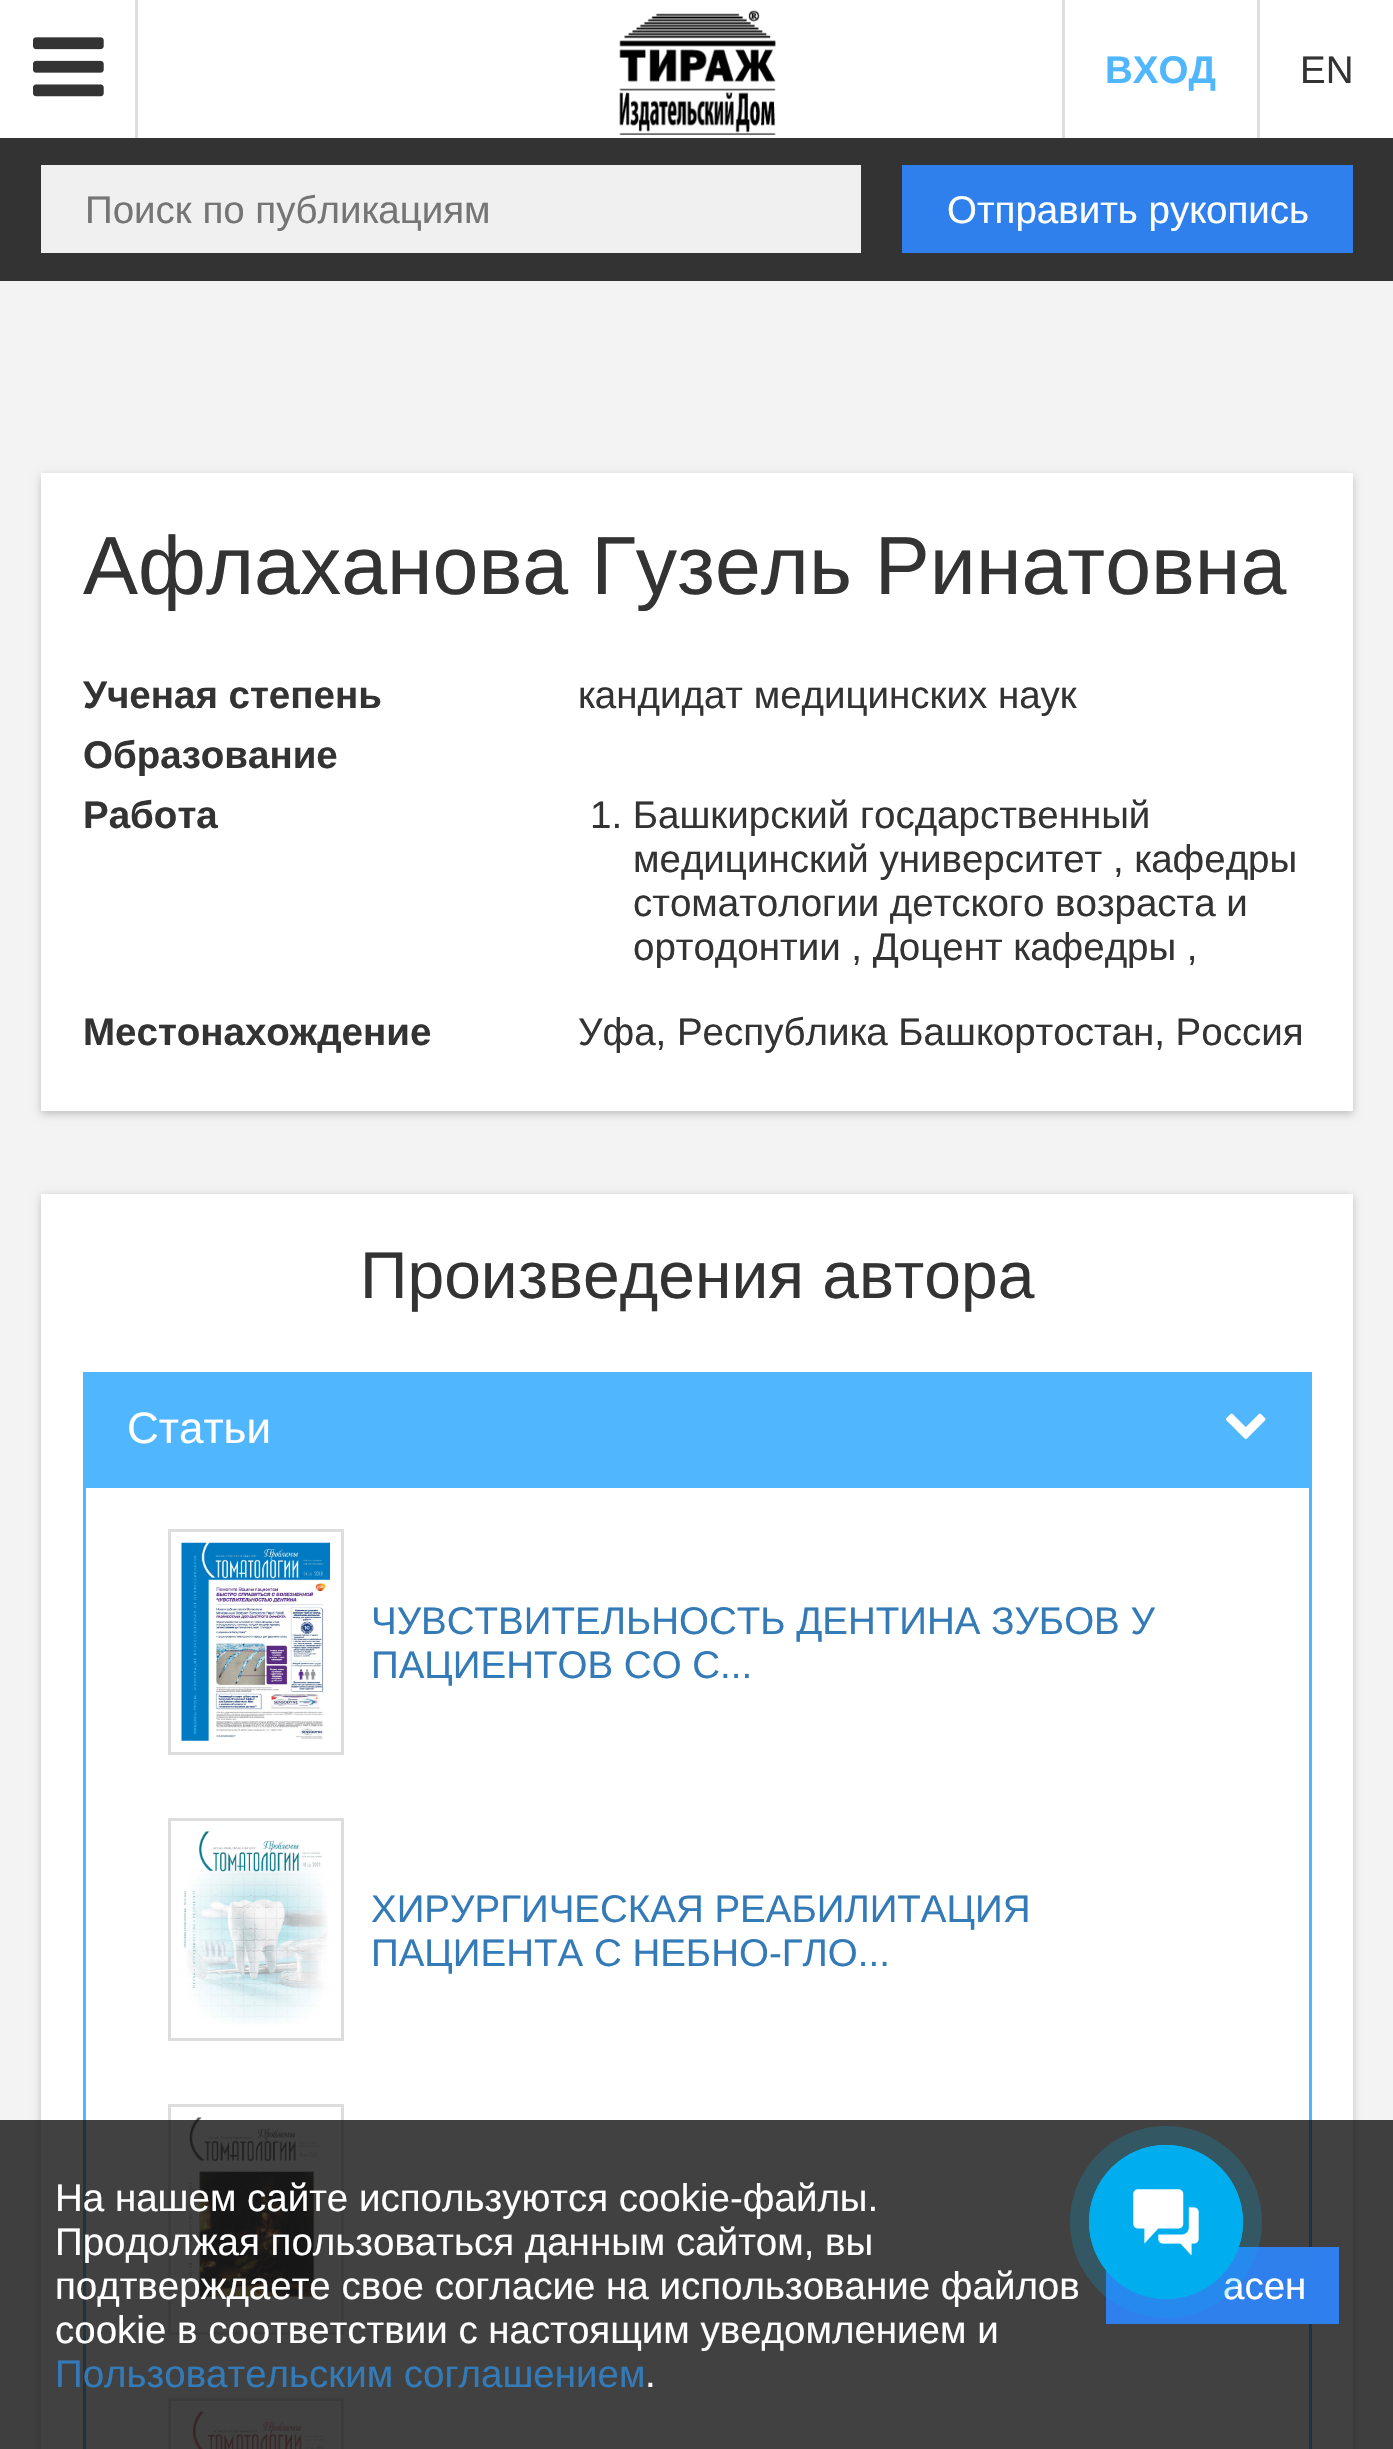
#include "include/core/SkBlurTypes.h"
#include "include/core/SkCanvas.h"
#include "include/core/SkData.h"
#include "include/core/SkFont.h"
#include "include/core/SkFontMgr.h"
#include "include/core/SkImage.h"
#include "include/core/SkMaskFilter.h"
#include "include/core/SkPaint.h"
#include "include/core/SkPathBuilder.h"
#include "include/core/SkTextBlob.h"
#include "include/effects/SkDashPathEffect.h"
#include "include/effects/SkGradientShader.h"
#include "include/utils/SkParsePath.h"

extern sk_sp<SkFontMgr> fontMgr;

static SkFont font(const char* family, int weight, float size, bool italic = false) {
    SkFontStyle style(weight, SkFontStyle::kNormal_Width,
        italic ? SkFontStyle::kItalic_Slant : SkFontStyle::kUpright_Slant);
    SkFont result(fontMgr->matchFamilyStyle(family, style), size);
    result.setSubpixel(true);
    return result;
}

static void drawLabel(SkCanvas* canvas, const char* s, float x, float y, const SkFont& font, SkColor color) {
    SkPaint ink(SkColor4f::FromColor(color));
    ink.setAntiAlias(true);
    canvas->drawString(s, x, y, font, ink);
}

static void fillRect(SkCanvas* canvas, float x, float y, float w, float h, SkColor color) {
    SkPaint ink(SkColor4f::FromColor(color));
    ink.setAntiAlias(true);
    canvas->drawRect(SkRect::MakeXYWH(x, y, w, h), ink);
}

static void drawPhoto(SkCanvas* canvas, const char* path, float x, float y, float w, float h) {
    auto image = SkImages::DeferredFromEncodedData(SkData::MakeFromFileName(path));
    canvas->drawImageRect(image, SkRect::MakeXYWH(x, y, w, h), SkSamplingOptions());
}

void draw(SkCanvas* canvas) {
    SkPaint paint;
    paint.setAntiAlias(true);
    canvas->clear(0xFFF4F3F3);
    fillRect(canvas, 0, 0, 1393, 138, 0xFFFFFFFF);
    fillRect(canvas, 135, 0, 3, 138, 0xFFDFDFDF);
    drawPhoto(canvas, "assets/img1.png", 33, 37, 71, 60);
    drawPhoto(canvas, "assets/img2.png", 619, 10, 157, 125);
    fillRect(canvas, 1062, 0, 3, 138, 0xFFDFDFDF);
    SkFont font1 = font("Liberation Sans", 700, 38.5f);
    drawLabel(canvas, "ВХОД", 1105, 83, font1, 0xFF50B7FF);
    fillRect(canvas, 1257, 0, 3, 138, 0xFFDFDFDF);
    SkFont font2 = font("Liberation Sans", 400, 38.5f);
    drawLabel(canvas, "EN", 1300, 83, font2, 0xFF333333);
    fillRect(canvas, 0, 138, 1393, 143, 0xFF333333);
    fillRect(canvas, 41, 165, 820, 88, 0xFFF0F0F0);
    drawLabel(canvas, "Поиск по публикациям", 85, 223, font2, 0xFF757575);
    fillRect(canvas, 902, 165, 451, 88, 0xFF2F80ED);
    drawLabel(canvas, "Отправить рукопись", 947, 223, font2, 0xFFFFFFFF);
    paint.setColor(0xFFBFBFBF);
    paint.setMaskFilter(SkMaskFilter::MakeBlur(kNormal_SkBlurStyle, 4));
    canvas->drawRect(SkRect::MakeXYWH(41, 476, 1312, 638), paint);
    paint.setMaskFilter(nullptr);
    fillRect(canvas, 41, 473, 1312, 638, 0xFFFFFFFF);
    SkFont font3 = font("Liberation Sans", 400, 82.5f);
    drawLabel(canvas, "Афлаханова Гузель Ринатовна", 83, 594, font3, 0xFF333333);
    drawLabel(canvas, "Ученая степень", 83, 708, font1, 0xFF333333);
    drawLabel(canvas, "кандидат медицинских наук", 578, 708, font2, 0xFF333333);
    drawLabel(canvas, "Образование", 83, 768, font1, 0xFF333333);
    drawLabel(canvas, "Работа", 83, 828, font1, 0xFF333333);
    drawLabel(canvas, "1. Башкирский госдарственный", 590, 828, font2, 0xFF333333);
    drawLabel(canvas, "медицинский университет , кафедры", 633, 872, font2, 0xFF333333);
    drawLabel(canvas, "стоматологии детского возраста и", 633, 916, font2, 0xFF333333);
    drawLabel(canvas, "ортодонтии , Доцент кафедры ,", 633, 960, font2, 0xFF333333);
    drawLabel(canvas, "Местонахождение", 83, 1045, font1, 0xFF333333);
    drawLabel(canvas, "Уфа, Республика Башкортостан, Россия", 578, 1045, font2, 0xFF333333);
    paint.setMaskFilter(SkMaskFilter::MakeBlur(kNormal_SkBlurStyle, 4));
    canvas->drawRect(SkRect::MakeXYWH(41, 1196, 1312, 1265), paint);
    paint.setMaskFilter(nullptr);
    fillRect(canvas, 41, 1194, 1312, 1255, 0xFFFFFFFF);
    SkFont font4 = font("Liberation Sans", 400, 66);
    drawLabel(canvas, "Произведения автора", 360, 1298, font4, 0xFF333333);
    paint.setStroke(true);
    paint.setStrokeWidth(3);
    paint.setColor(0xFF50B7FF);
    canvas->drawRect(SkRect::MakeXYWH(84.5f, 1373.5f, 1226, 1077), paint);
    fillRect(canvas, 86, 1375, 1223, 110, 0xFF50B7FF);
    SkFont font5 = font("Liberation Sans", 400, 44);
    drawLabel(canvas, "Статьи", 127, 1443, font5, 0xFFFFFFFF);
    drawPhoto(canvas, "assets/img3.png", 1226, 1413, 40, 26);
    fillRect(canvas, 85, 1485, 1224, 3, 0xFF50B7FF);
    paint.setColor(0xFFDDDDDD);
    canvas->drawRect(SkRect::MakeXYWH(169.5f, 1530.5f, 173, 223), paint);
    drawPhoto(canvas, "assets/img4.png", 181, 1542, 149, 199);
    drawLabel(canvas, "ЧУВСТВИТЕЛЬНОСТЬ ДЕНТИНА ЗУБОВ У", 371, 1634, font2, 0xFF337AB7);
    drawLabel(canvas, "ПАЦИЕНТОВ СО С...", 371, 1678, font2, 0xFF337AB7);
    canvas->drawRect(SkRect::MakeXYWH(169.5f, 1819.5f, 173, 220), paint);
    drawPhoto(canvas, "assets/img5.png", 183, 1831, 145, 194);
    drawLabel(canvas, "ХИРУРГИЧЕСКАЯ РЕАБИЛИТАЦИЯ", 371, 1922, font2, 0xFF337AB7);
    drawLabel(canvas, "ПАЦИЕНТА С НЕБНО-ГЛО...", 371, 1966, font2, 0xFF337AB7);
    canvas->drawRect(SkRect::MakeXYWH(169.5f, 2105.5f, 173, 228), paint);
    drawPhoto(canvas, "assets/img6.png", 189, 2117, 130, 180);
    canvas->drawRect(SkRect::MakeXYWH(169.5f, 2399.5f, 173, 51), paint);
    drawPhoto(canvas, "assets/img7.png", 192, 2411, 133, 38);
    fillRect(canvas, 0, 2120, 1393, 329, 0xCC121212);
    drawLabel(canvas, "На нашем сайте используются cookie-файлы.", 55, 2211, font2, 0xFFFFFFFF);
    drawLabel(canvas, "Продолжая пользоваться данным сайтом, вы", 55, 2255, font2, 0xFFFFFFFF);
    drawLabel(canvas, "подтверждаете свое согласие на использование файлов", 55, 2299, font2, 0xFFFFFFFF);
    drawLabel(canvas, "cookie в соответствии с настоящим уведомлением и", 55, 2343, font2, 0xFFFFFFFF);
    drawLabel(canvas, "Пользовательским соглашением", 55, 2387, font2, 0xFF337AB7);
    drawLabel(canvas, ".", 645, 2387, font2, 0xFFFFFFFF);
    fillRect(canvas, 1106, 2247, 233, 77, 0xFF2F80ED);
    drawLabel(canvas, "асен", 1223, 2299, font2, 0xFFFFFFFF);
    paint.setStroke(false);
    paint.setColor(0x3300AEEF);
    canvas->drawCircle(1166, 2222, 96, paint);
    paint.setStroke(true);
    paint.setStrokeWidth(2);
    paint.setColor(0xFF00AEEF);
    canvas->drawCircle(1166, 2222, 76, paint);
    paint.setStroke(false);
    canvas->drawCircle(1166, 2222, 77, paint);
    drawPhoto(canvas, "assets/img8.png", 1133, 2189, 66, 66);
}
